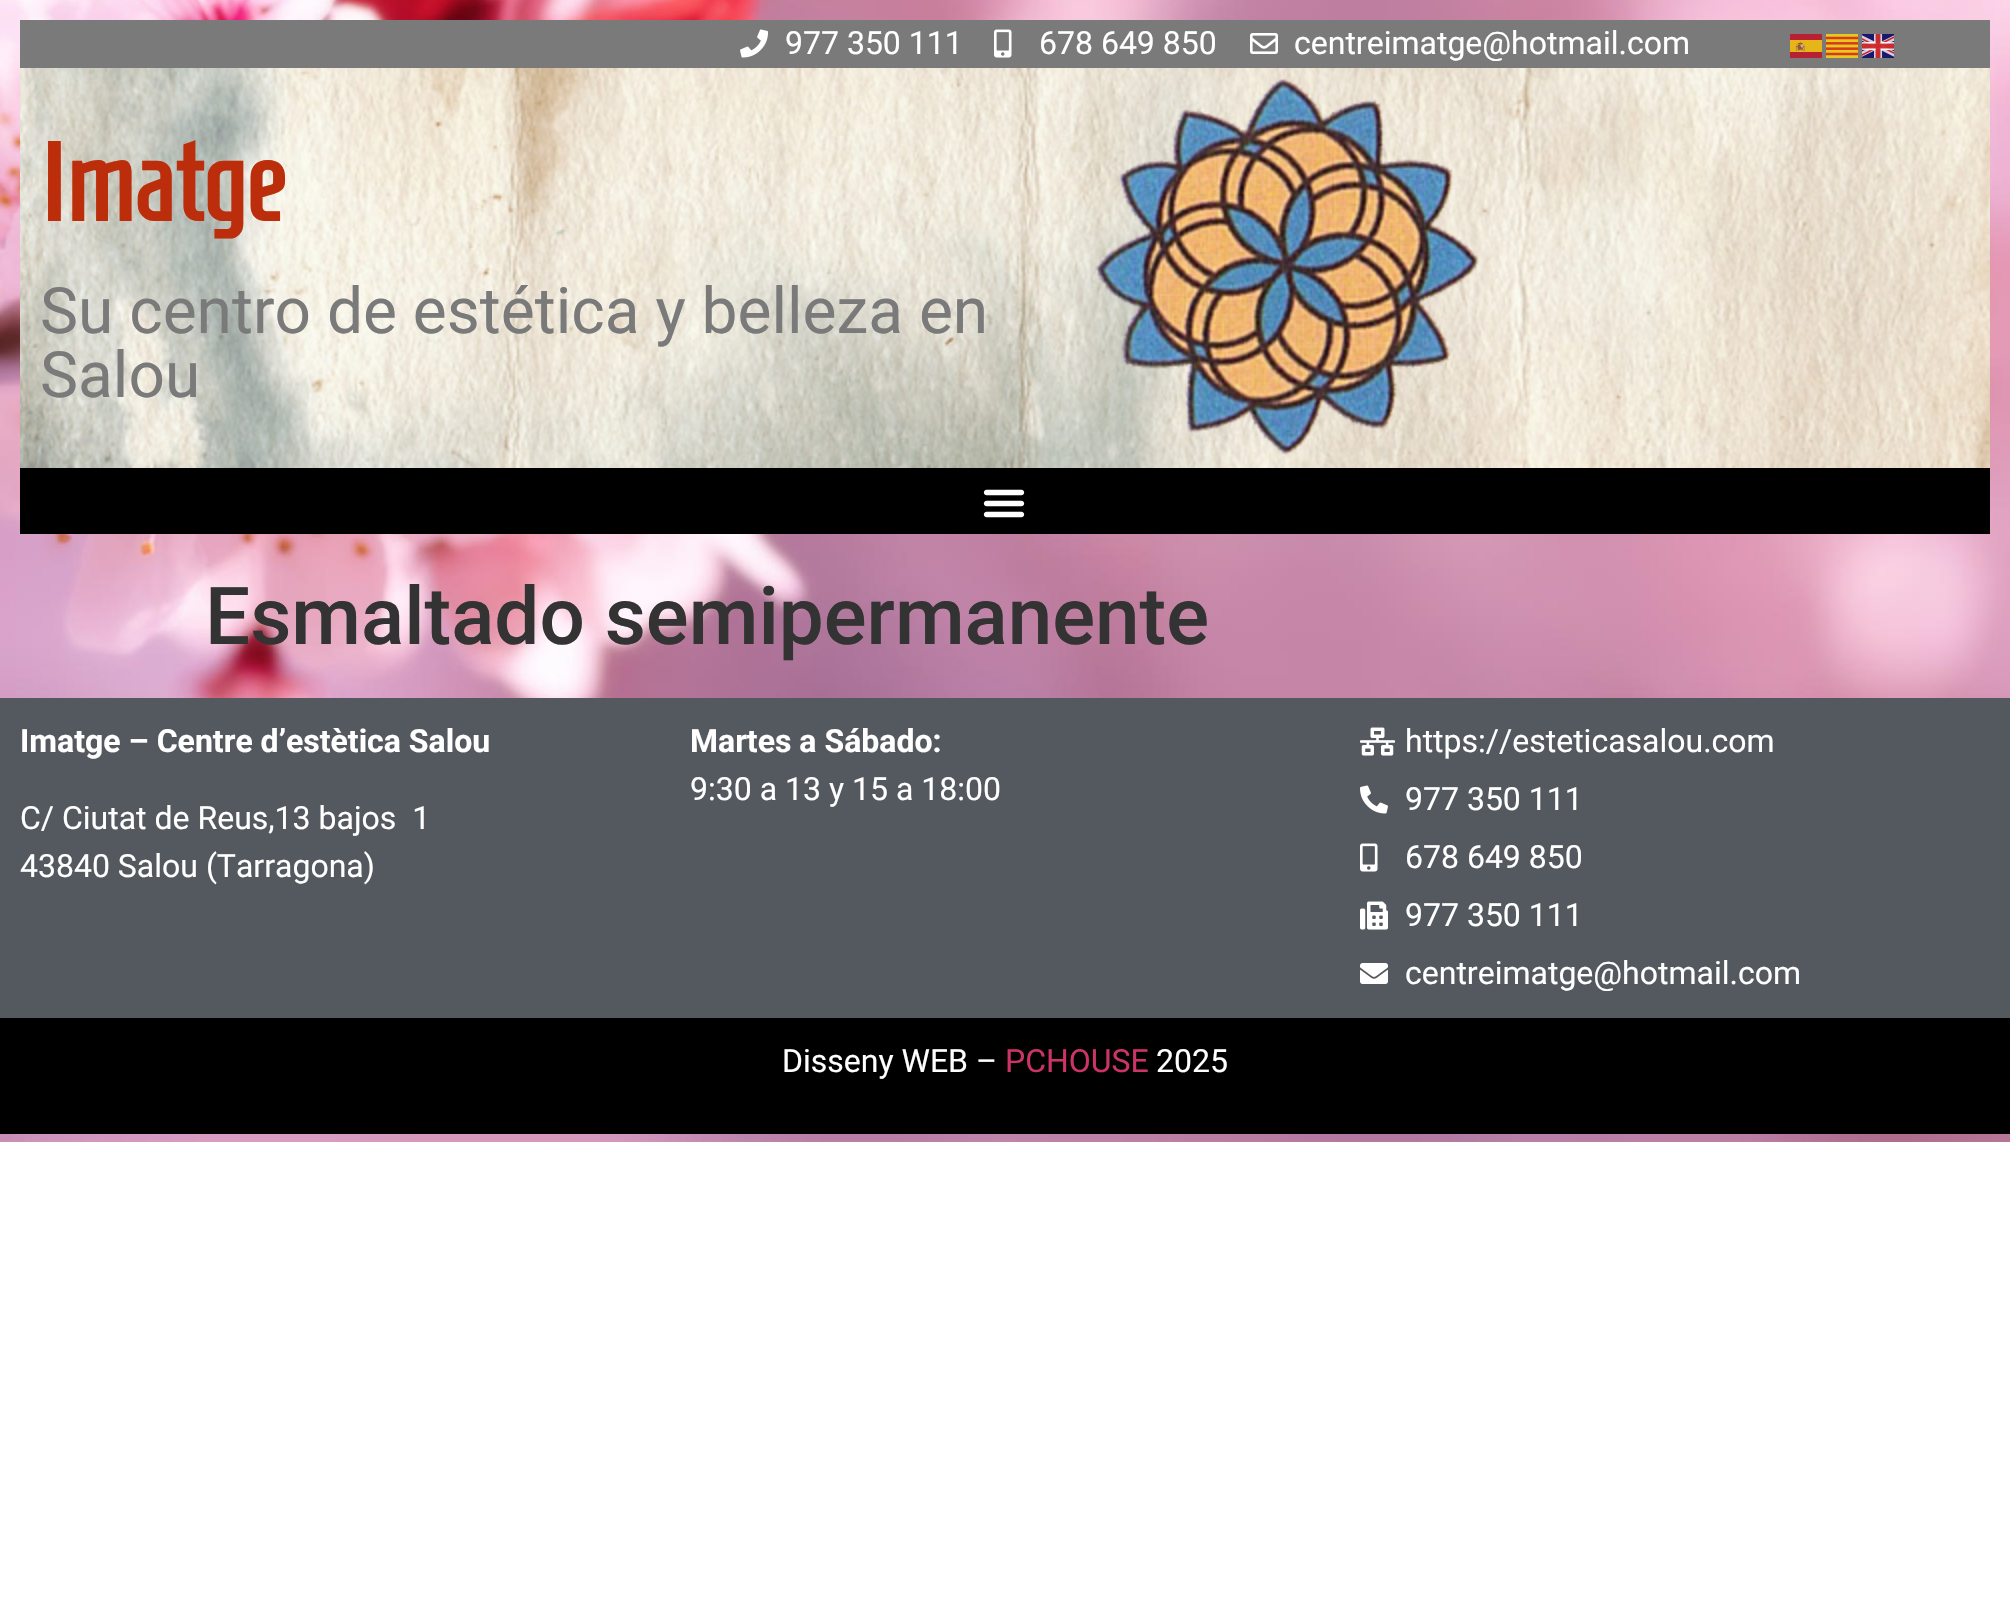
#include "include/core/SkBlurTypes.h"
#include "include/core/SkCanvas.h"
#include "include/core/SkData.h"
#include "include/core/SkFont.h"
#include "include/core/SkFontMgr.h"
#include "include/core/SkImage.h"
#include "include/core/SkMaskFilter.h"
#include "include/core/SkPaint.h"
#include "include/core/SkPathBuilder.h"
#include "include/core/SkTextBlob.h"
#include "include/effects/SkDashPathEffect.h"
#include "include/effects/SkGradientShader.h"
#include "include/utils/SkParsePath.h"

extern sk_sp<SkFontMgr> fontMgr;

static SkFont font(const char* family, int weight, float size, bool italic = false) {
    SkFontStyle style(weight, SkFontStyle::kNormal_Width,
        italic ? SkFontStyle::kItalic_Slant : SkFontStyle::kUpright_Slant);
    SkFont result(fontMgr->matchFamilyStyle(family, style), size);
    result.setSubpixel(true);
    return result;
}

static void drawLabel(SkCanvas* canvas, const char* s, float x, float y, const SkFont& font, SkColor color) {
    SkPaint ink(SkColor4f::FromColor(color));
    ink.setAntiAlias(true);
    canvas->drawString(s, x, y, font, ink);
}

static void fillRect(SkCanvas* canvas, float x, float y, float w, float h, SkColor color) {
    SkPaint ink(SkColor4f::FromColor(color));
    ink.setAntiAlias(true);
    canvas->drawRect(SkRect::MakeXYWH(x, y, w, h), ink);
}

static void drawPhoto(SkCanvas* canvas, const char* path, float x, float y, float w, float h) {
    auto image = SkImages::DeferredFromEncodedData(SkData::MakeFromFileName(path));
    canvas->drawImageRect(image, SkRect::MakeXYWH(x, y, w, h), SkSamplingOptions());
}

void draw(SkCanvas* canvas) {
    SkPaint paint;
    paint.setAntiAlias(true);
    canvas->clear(0xFFFFFFFF);
    drawPhoto(canvas, "assets/img1.png", 0, 0, 2010, 1142);
    fillRect(canvas, 20, 20, 1970, 48, 0xFF7A7A7A);
    drawPhoto(canvas, "assets/img2.png", 740, 29, 29, 29);
    SkFont font1 = font("Roboto", 400, 32);
    drawLabel(canvas, "977 350 111", 785, 54, font1, 0xFFFFFFFF);
    drawPhoto(canvas, "assets/img3.png", 994, 29, 18, 29);
    drawLabel(canvas, "678 649 850", 1039, 54, font1, 0xFFFFFFFF);
    drawPhoto(canvas, "assets/img4.png", 1250, 33, 28, 21);
    drawLabel(canvas, "centreimatge@hotmail.com", 1294, 54, font1, 0xFFFFFFFF);
    drawPhoto(canvas, "assets/img5.png", 1790, 34, 32, 24);
    drawPhoto(canvas, "assets/img6.png", 1826, 34, 32, 24);
    drawPhoto(canvas, "assets/img7.png", 1862, 34, 32, 24);
    drawPhoto(canvas, "assets/img8.png", 20, 68, 1970, 400);
    SkFont font2 = font("Homenaje", 700, 110);
    drawLabel(canvas, "Imatge", 40, 221, font2, 0xFFBC2E0B);
    SkFont font3 = font("Roboto", 400, 64);
    drawLabel(canvas, "Su centro de estética y belleza en", 40, 333, font3, 0xFF7A7A7A);
    drawLabel(canvas, "Salou", 40, 397, font3, 0xFF7A7A7A);
    drawPhoto(canvas, "assets/img9.png", 1095, 77, 384, 378);
    fillRect(canvas, 20, 468, 1970, 66, 0xFF000000);
    drawPhoto(canvas, "assets/img10.png", 983, 489, 42, 29);
    SkFont font4 = font("Roboto", 500, 80);
    drawLabel(canvas, "Esmaltado semipermanente", 205, 644, font4, 0xFF333333);
    fillRect(canvas, 0, 698, 2010, 320, 0xFF54595F);
    SkFont font5 = font("Roboto", 700, 32);
    drawLabel(canvas, "Imatge – Centre d’estètica Salou", 20, 752, font5, 0xFFFFFFFF);
    drawLabel(canvas, "C/ Ciutat de Reus,13 bajos  1", 20, 829, font1, 0xFFFFFFFF);
    drawLabel(canvas, "43840 Salou (Tarragona)", 20, 877, font1, 0xFFFFFFFF);
    drawLabel(canvas, "Martes a Sábado:", 690, 752, font5, 0xFFFFFFFF);
    drawLabel(canvas, "9:30 a 13 y 15 a 18:00", 690, 800, font1, 0xFFFFFFFF);
    drawPhoto(canvas, "assets/img11.png", 1360, 727, 35, 29);
    drawLabel(canvas, "https://esteticasalou.com", 1405, 752, font1, 0xFFFFFFFF);
    drawPhoto(canvas, "assets/img12.png", 1360, 785, 28, 29);
    drawLabel(canvas, "977 350 111", 1405, 810, font1, 0xFFFFFFFF);
    drawPhoto(canvas, "assets/img13.png", 1360, 843, 18, 29);
    drawLabel(canvas, "678 649 850", 1405, 868, font1, 0xFFFFFFFF);
    drawPhoto(canvas, "assets/img14.png", 1360, 901, 28, 29);
    drawLabel(canvas, "977 350 111", 1405, 926, font1, 0xFFFFFFFF);
    drawPhoto(canvas, "assets/img15.png", 1360, 963, 28, 21);
    drawLabel(canvas, "centreimatge@hotmail.com", 1405, 984, font1, 0xFFFFFFFF);
    fillRect(canvas, 0, 1018, 2010, 116, 0xFF000000);
    drawLabel(canvas, "Disseny WEB –", 782, 1072, font1, 0xFFFFFFFF);
    drawLabel(canvas, "PCHOUSE", 1005, 1072, font1, 0xFFCC3366);
    drawLabel(canvas, "2025", 1156, 1072, font1, 0xFFFFFFFF);
}
